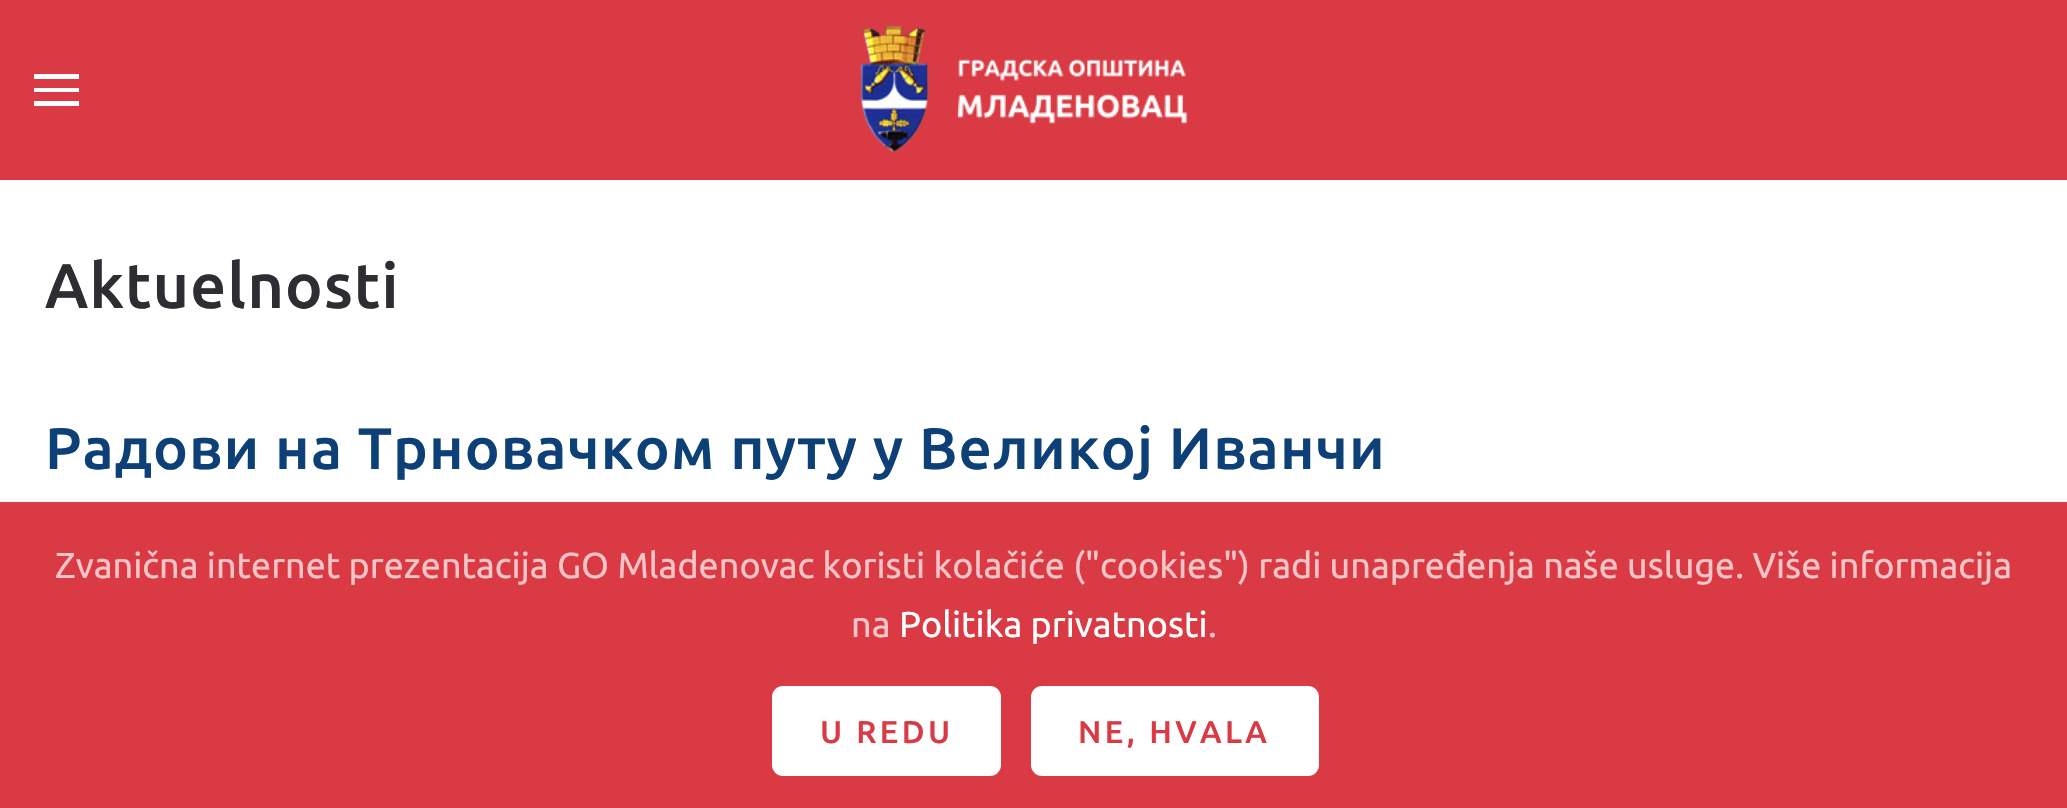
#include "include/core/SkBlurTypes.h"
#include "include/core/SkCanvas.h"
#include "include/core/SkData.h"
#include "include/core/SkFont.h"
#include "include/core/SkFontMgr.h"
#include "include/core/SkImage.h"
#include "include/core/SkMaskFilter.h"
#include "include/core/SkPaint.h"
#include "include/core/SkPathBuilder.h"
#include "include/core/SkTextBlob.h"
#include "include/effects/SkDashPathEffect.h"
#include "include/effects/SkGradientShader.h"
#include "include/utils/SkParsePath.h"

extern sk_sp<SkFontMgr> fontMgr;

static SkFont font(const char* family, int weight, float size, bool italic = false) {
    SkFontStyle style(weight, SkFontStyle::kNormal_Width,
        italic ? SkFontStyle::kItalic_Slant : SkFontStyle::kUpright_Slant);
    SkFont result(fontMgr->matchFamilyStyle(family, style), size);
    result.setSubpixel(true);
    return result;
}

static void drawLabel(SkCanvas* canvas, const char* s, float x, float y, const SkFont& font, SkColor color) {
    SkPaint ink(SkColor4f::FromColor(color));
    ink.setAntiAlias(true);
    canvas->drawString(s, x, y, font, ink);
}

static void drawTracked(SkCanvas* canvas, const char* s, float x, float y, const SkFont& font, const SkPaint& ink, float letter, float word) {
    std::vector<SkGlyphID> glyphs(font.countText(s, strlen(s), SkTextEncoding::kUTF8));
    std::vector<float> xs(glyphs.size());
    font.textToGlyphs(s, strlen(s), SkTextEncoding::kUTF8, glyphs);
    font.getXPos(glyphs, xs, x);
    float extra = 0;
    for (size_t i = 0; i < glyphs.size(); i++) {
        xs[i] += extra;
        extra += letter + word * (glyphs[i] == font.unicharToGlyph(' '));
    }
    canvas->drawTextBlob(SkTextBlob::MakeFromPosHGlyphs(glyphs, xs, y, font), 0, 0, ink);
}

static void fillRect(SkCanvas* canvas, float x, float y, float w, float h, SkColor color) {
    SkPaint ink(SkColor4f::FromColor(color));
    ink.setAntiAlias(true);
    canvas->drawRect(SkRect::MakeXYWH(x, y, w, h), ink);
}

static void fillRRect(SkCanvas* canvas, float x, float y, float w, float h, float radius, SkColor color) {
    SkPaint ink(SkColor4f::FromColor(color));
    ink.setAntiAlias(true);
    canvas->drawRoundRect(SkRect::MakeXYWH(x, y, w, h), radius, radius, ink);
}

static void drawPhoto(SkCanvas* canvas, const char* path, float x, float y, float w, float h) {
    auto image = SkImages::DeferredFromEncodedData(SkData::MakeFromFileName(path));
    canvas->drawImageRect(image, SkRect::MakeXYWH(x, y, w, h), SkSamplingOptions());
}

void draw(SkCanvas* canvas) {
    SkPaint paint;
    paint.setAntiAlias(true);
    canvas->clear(0xFFFFFFFF);
    fillRect(canvas, 0, 0, 2067, 180, 0xFFD93A43);
    fillRect(canvas, 34, 74, 45, 5, 0xFFFFFFFF);
    fillRect(canvas, 34, 88, 45, 4, 0xFFFFFFFF);
    fillRect(canvas, 34, 101, 45, 5, 0xFFFFFFFF);
    drawPhoto(canvas, "assets/img1.png", 860, 25, 328, 128);
    SkFont font1 = font("Ubuntu", 500, 63);
    paint.setColor(0xFF2D2E33);
    drawTracked(canvas, "Aktuelnosti", 45, 308, font1, paint, 1.1f, 0);
    SkFont font2 = font("Ubuntu", 500, 58.5f);
    paint.setColor(0xFF0C4076);
    drawTracked(canvas, "Радови на Трновачком путу у Великој Иванчи", 45, 469, font2, paint, 1.1f, 0);
    fillRect(canvas, 0, 502, 2067, 306, 0xFFD93A43);
    SkFont font3 = font("Ubuntu", 400, 36);
    drawLabel(canvas, "Zvanična internet prezentacija GO Mladenovac koristi kolačiće (\"cookies\") radi unapređenja naše usluge. Više informacija", 55, 578, font3, 0xFFF4C4C7);
    drawLabel(canvas, "na", 851, 637, font3, 0xFFF4C4C7);
    drawLabel(canvas, "Politika privatnosti", 899, 637, font3, 0xFFFFFFFF);
    drawLabel(canvas, ".", 1208, 637, font3, 0xFFF4C4C7);
    fillRRect(canvas, 772, 686, 229, 90, 11, 0xFFFFFFFF);
    SkFont font4 = font("Ubuntu", 500, 31.5f);
    paint.setColor(0xFFD93A43);
    drawTracked(canvas, "U REDU", 820, 743, font4, paint, 3.4f, 0);
    fillRRect(canvas, 1031, 686, 288, 90, 11, 0xFFFFFFFF);
    drawTracked(canvas, "NE, HVALA", 1078, 743, font4, paint, 3.4f, 0);
}
